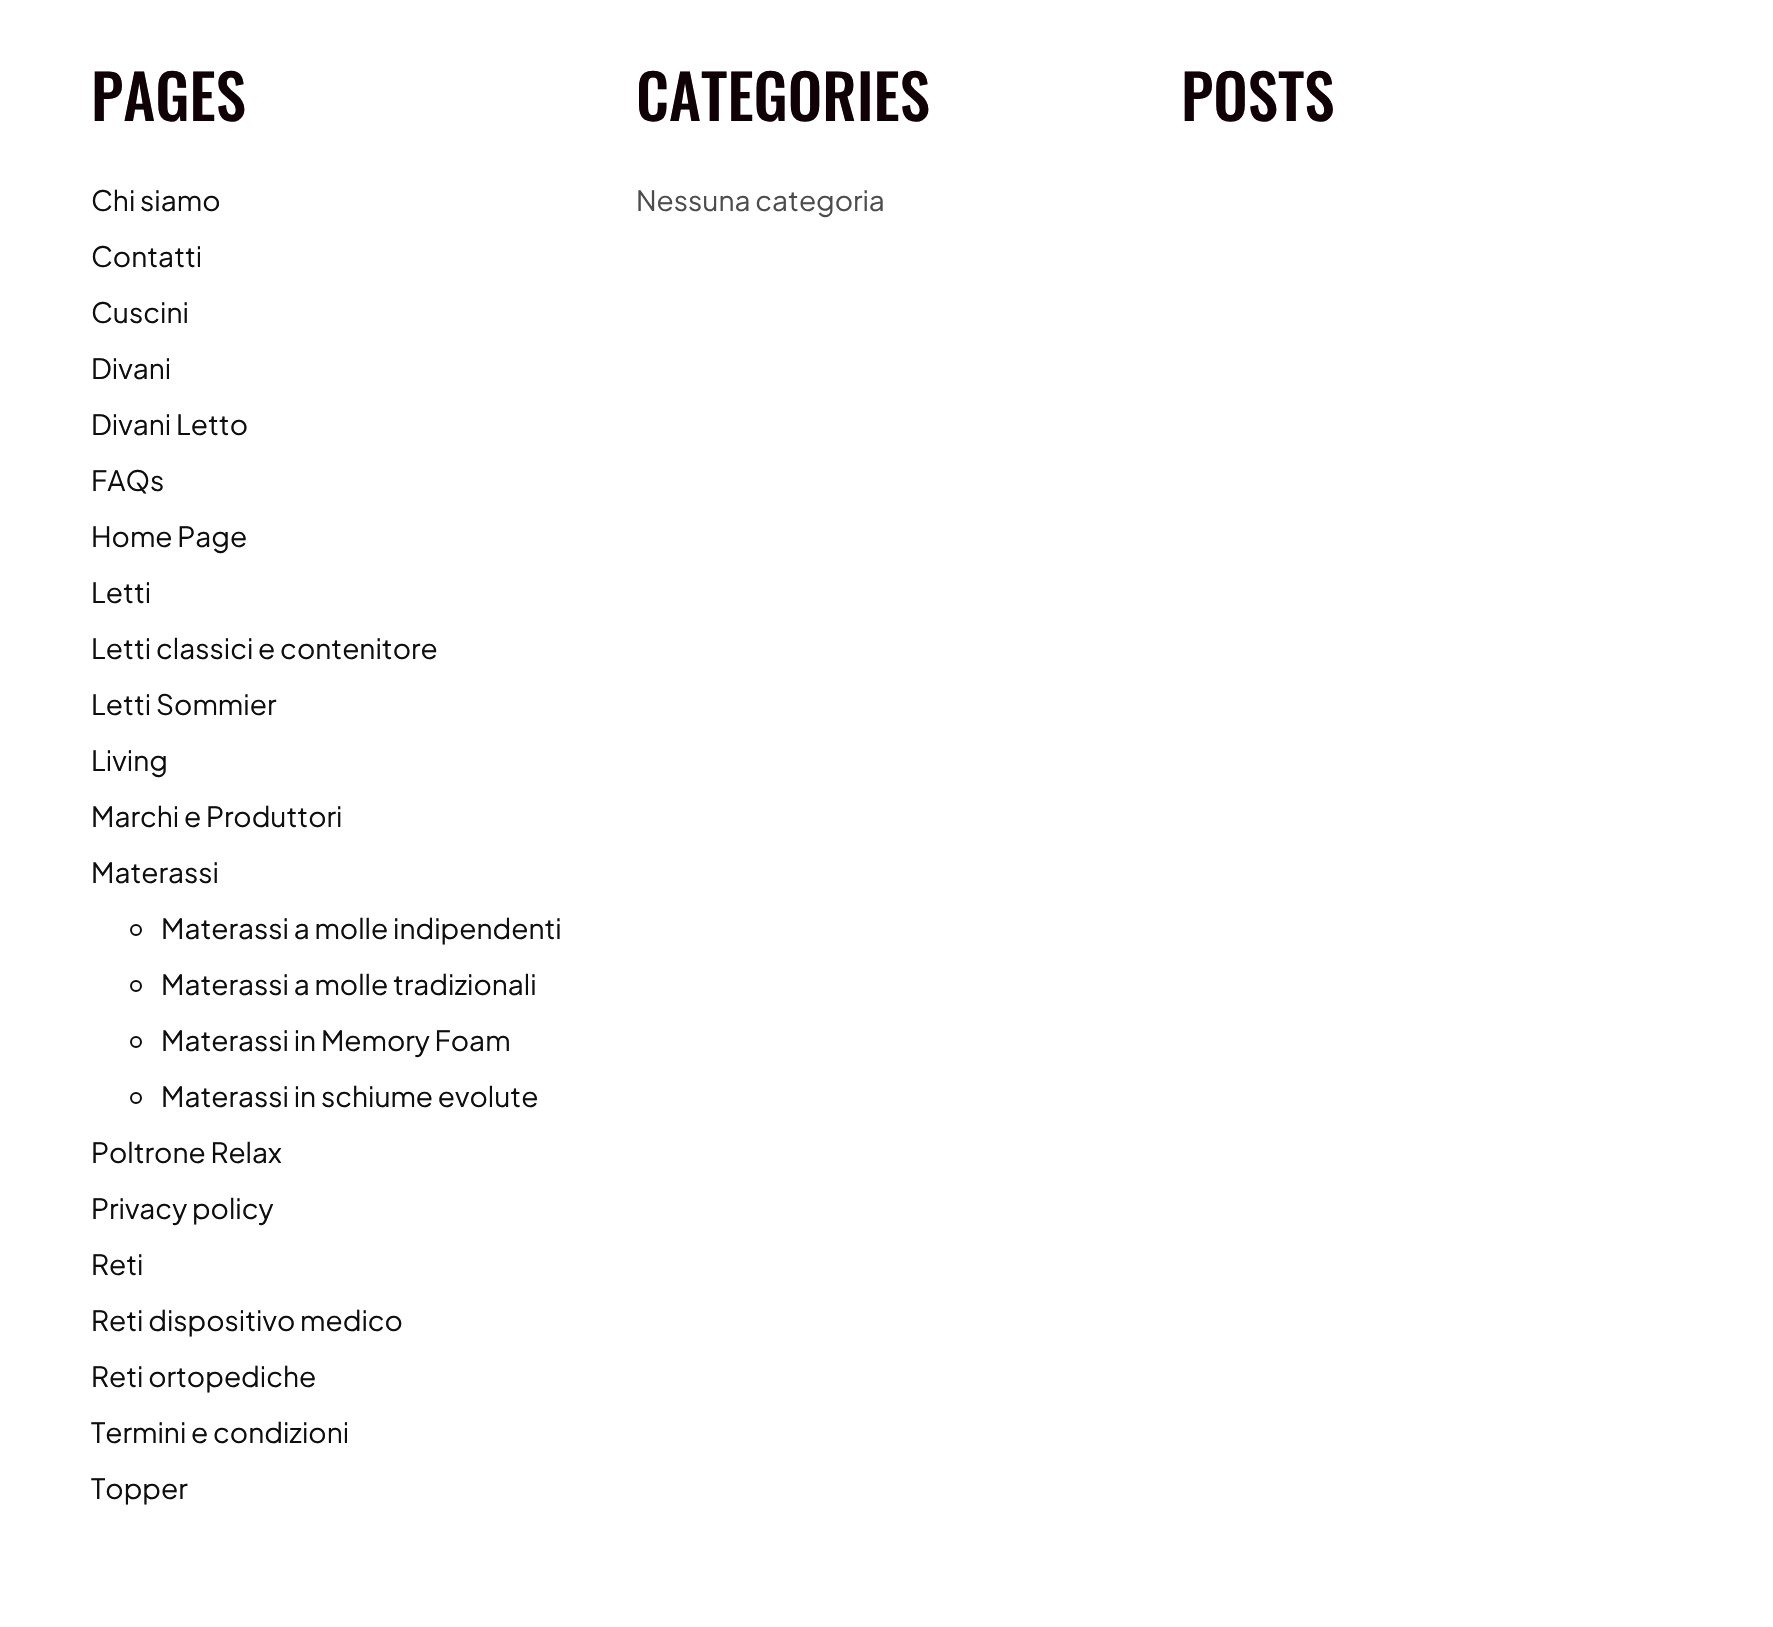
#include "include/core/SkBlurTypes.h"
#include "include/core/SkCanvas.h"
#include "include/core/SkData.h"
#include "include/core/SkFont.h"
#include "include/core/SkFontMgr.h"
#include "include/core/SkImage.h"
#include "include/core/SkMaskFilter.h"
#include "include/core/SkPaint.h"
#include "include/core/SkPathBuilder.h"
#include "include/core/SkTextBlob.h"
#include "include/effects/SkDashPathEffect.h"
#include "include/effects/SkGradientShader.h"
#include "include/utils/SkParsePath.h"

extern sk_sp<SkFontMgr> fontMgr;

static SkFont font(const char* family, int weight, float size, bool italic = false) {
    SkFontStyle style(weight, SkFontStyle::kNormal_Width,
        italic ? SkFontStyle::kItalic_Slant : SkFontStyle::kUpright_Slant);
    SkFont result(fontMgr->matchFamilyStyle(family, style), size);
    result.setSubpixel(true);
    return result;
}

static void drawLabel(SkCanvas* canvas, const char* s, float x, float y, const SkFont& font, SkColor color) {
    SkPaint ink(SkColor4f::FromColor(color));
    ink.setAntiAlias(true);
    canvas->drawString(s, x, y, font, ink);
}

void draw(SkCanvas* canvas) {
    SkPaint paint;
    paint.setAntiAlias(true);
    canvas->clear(0xFFFFFFFF);
    SkFont font1 = font("Oswald", 500, 61.25f);
    drawLabel(canvas, "PAGES", 91, 121, font1, 0xFF0F0106);
    SkFont font2 = font("Plus Jakarta Sans", 400, 28);
    drawLabel(canvas, "Chi siamo", 91, 211, font2, 0xFF0E0E0E);
    drawLabel(canvas, "Contatti", 91, 267, font2, 0xFF0E0E0E);
    drawLabel(canvas, "Cuscini", 91, 323, font2, 0xFF0E0E0E);
    drawLabel(canvas, "Divani", 91, 379, font2, 0xFF0E0E0E);
    drawLabel(canvas, "Divani Letto", 91, 435, font2, 0xFF0E0E0E);
    drawLabel(canvas, "FAQs", 91, 491, font2, 0xFF0E0E0E);
    drawLabel(canvas, "Home Page", 91, 547, font2, 0xFF0E0E0E);
    drawLabel(canvas, "Letti", 91, 603, font2, 0xFF0E0E0E);
    drawLabel(canvas, "Letti classici e contenitore", 91, 659, font2, 0xFF0E0E0E);
    drawLabel(canvas, "Letti Sommier", 91, 715, font2, 0xFF0E0E0E);
    drawLabel(canvas, "Living", 91, 771, font2, 0xFF0E0E0E);
    drawLabel(canvas, "Marchi e Produttori", 91, 827, font2, 0xFF0E0E0E);
    drawLabel(canvas, "Materassi", 91, 883, font2, 0xFF0E0E0E);
    paint.setStroke(true);
    paint.setStrokeWidth(2);
    paint.setColor(0xFF0E0E0E);
    canvas->drawCircle(136, 930, 5, paint);
    drawLabel(canvas, "Materassi a molle indipendenti", 161, 939, font2, 0xFF0E0E0E);
    canvas->drawCircle(136, 986, 5, paint);
    drawLabel(canvas, "Materassi a molle tradizionali", 161, 995, font2, 0xFF0E0E0E);
    canvas->drawCircle(136, 1042, 5, paint);
    drawLabel(canvas, "Materassi in Memory Foam", 161, 1051, font2, 0xFF0E0E0E);
    canvas->drawCircle(136, 1098, 5, paint);
    drawLabel(canvas, "Materassi in schiume evolute", 161, 1107, font2, 0xFF0E0E0E);
    drawLabel(canvas, "Poltrone Relax", 91, 1163, font2, 0xFF0E0E0E);
    drawLabel(canvas, "Privacy policy", 91, 1219, font2, 0xFF0E0E0E);
    drawLabel(canvas, "Reti", 91, 1275, font2, 0xFF0E0E0E);
    drawLabel(canvas, "Reti dispositivo medico", 91, 1331, font2, 0xFF0E0E0E);
    drawLabel(canvas, "Reti ortopediche", 91, 1387, font2, 0xFF0E0E0E);
    drawLabel(canvas, "Termini e condizioni", 91, 1443, font2, 0xFF0E0E0E);
    drawLabel(canvas, "Topper", 91, 1499, font2, 0xFF0E0E0E);
    drawLabel(canvas, "CATEGORIES", 636, 121, font1, 0xFF0F0106);
    drawLabel(canvas, "Nessuna categoria", 636, 211, font2, 0xFF4C4C4C);
    drawLabel(canvas, "POSTS", 1181, 121, font1, 0xFF0F0106);
}
